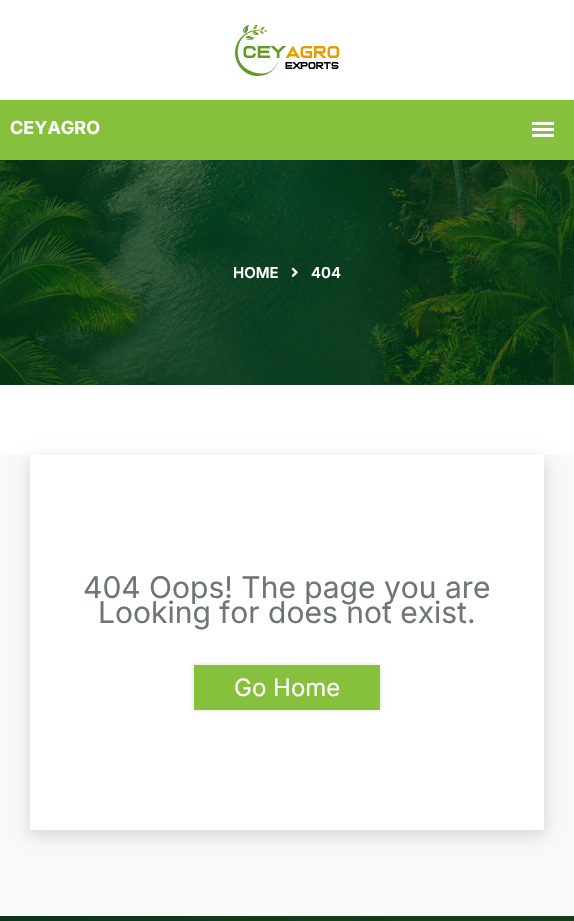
#include "include/core/SkBlurTypes.h"
#include "include/core/SkCanvas.h"
#include "include/core/SkData.h"
#include "include/core/SkFont.h"
#include "include/core/SkFontMgr.h"
#include "include/core/SkImage.h"
#include "include/core/SkMaskFilter.h"
#include "include/core/SkPaint.h"
#include "include/core/SkPathBuilder.h"
#include "include/core/SkTextBlob.h"
#include "include/effects/SkDashPathEffect.h"
#include "include/effects/SkGradientShader.h"
#include "include/utils/SkParsePath.h"

extern sk_sp<SkFontMgr> fontMgr;

static SkFont font(const char* family, int weight, float size, bool italic = false) {
    SkFontStyle style(weight, SkFontStyle::kNormal_Width,
        italic ? SkFontStyle::kItalic_Slant : SkFontStyle::kUpright_Slant);
    SkFont result(fontMgr->matchFamilyStyle(family, style), size);
    result.setSubpixel(true);
    return result;
}

static void drawLabel(SkCanvas* canvas, const char* s, float x, float y, const SkFont& font, SkColor color) {
    SkPaint ink(SkColor4f::FromColor(color));
    ink.setAntiAlias(true);
    canvas->drawString(s, x, y, font, ink);
}

static void fillRect(SkCanvas* canvas, float x, float y, float w, float h, SkColor color) {
    SkPaint ink(SkColor4f::FromColor(color));
    ink.setAntiAlias(true);
    canvas->drawRect(SkRect::MakeXYWH(x, y, w, h), ink);
}

static void drawPhoto(SkCanvas* canvas, const char* path, float x, float y, float w, float h) {
    auto image = SkImages::DeferredFromEncodedData(SkData::MakeFromFileName(path));
    canvas->drawImageRect(image, SkRect::MakeXYWH(x, y, w, h), SkSamplingOptions());
}

void draw(SkCanvas* canvas) {
    SkPaint paint;
    paint.setAntiAlias(true);
    canvas->clear(0xFFFFFFFF);
    drawPhoto(canvas, "assets/img1.png", 235, 25, 105, 51);
    fillRect(canvas, 0, 100, 574, 60, 0xFF87C03D);
    SkFont font1 = font("Inter", 700, 18);
    drawLabel(canvas, "CEYAGRO", 10, 134, font1, 0xFFFFFFFF);
    fillRect(canvas, 532, 122, 22, 3, 0xFFFFFFFF);
    fillRect(canvas, 532, 128, 22, 3, 0xFFFFFFFF);
    fillRect(canvas, 532, 134, 22, 3, 0xFFFFFFFF);
    drawPhoto(canvas, "assets/img2.png", 0, 160, 574, 225);
    SkFont font2 = font("Inter", 600, 15);
    drawLabel(canvas, "HOME", 233, 278, font2, 0xFFFFFFFF);
    drawPhoto(canvas, "assets/img3.png", 291, 267, 7, 10);
    drawLabel(canvas, "404", 311, 278, font2, 0xFFFFFFFF);
    fillRect(canvas, 0, 455, 574, 461, 0xFFF9F9F9);
    paint.setColor(0x26000000);
    paint.setMaskFilter(SkMaskFilter::MakeBlur(kNormal_SkBlurStyle, 7.5f));
    canvas->drawRect(SkRect::MakeXYWH(30, 460, 514, 375), paint);
    paint.setMaskFilter(nullptr);
    fillRect(canvas, 30, 455, 514, 375, 0xFFFFFFFF);
    SkFont font3 = font("Inter", 400, 30);
    drawLabel(canvas, "404 Oops! The page you are", 83, 598, font3, 0xFF6E7673);
    drawLabel(canvas, "Looking for does not exist.", 98, 623, font3, 0xFF6E7673);
    paint.setMaskFilter(SkMaskFilter::MakeBlur(kNormal_SkBlurStyle, 2));
    canvas->drawRect(SkRect::MakeXYWH(194, 665, 186, 45), paint);
    paint.setMaskFilter(nullptr);
    fillRect(canvas, 194, 665, 186, 45, 0xFF87C03D);
    SkFont font4 = font("Inter", 400, 24);
    drawLabel(canvas, "Go Home", 234, 696, font4, 0xFFFFFFFF);
    drawPhoto(canvas, "assets/img4.png", 0, 916, 574, 5);
}
